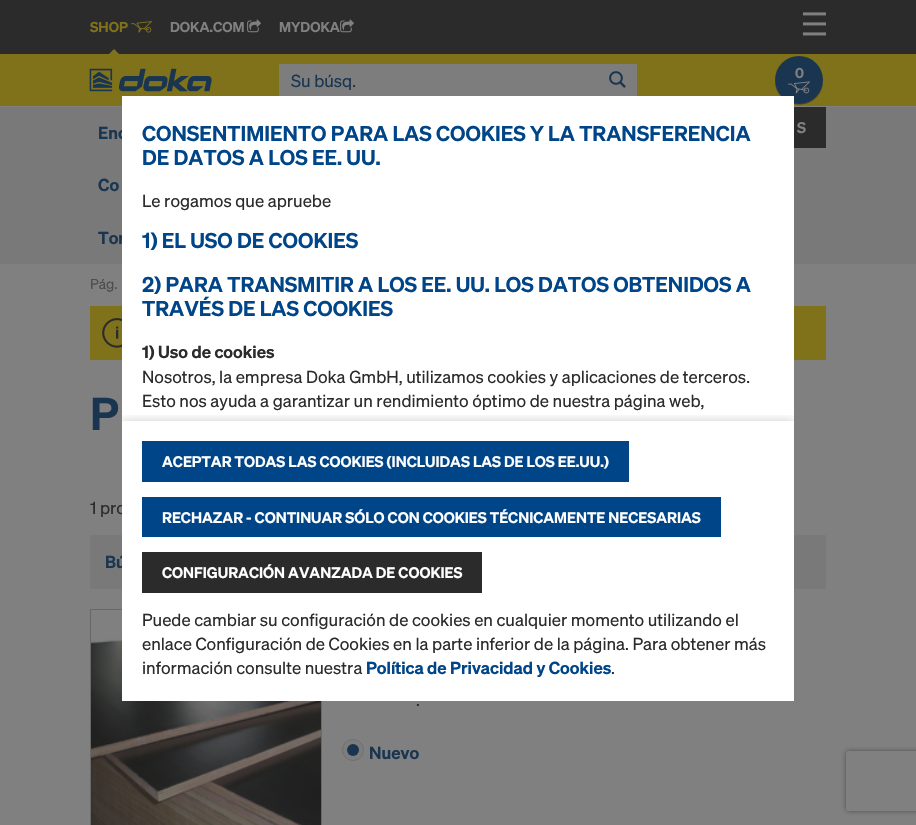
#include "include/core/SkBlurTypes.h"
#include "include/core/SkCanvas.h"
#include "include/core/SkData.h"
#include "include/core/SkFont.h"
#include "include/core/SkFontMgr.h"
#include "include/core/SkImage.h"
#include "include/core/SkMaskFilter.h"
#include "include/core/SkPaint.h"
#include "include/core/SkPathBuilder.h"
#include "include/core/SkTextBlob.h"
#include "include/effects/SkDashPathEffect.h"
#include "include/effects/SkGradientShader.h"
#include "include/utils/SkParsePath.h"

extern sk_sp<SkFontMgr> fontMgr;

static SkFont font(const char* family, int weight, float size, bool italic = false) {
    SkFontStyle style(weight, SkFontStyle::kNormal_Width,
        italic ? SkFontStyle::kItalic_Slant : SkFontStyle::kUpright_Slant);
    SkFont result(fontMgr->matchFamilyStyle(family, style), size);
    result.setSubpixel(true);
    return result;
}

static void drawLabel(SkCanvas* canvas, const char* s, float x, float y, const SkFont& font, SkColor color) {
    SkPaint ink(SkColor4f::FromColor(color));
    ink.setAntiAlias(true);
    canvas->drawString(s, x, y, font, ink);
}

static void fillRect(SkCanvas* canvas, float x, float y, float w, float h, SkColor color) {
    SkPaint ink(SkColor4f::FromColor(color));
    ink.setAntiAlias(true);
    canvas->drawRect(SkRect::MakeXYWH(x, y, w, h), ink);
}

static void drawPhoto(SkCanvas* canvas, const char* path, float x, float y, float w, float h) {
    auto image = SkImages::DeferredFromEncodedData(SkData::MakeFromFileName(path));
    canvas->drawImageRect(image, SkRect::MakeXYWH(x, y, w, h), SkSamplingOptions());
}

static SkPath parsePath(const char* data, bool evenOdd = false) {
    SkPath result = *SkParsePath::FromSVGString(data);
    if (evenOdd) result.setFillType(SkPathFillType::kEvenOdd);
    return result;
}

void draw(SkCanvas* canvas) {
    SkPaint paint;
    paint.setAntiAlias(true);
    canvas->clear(0xFF808080);
    fillRect(canvas, 0, 0, 916, 54, 0xFF2B2B2B);
    SkFont font1 = font("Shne", 600, 14);
    drawLabel(canvas, "SHOP", 90, 32, font1, 0xFF80721A);
    drawPhoto(canvas, "assets/img1.png", 131, 21, 21, 12);
    fillRect(canvas, 0, 54, 916, 52, 0xFF80721A);
    paint.setColor(0xFF80721A);
    canvas->drawPath(parsePath("M121 56H107L114 49Z"), paint);
    drawLabel(canvas, "DOKA.COM", 170, 32, font1, 0xFF808080);
    drawPhoto(canvas, "assets/img2.png", 247, 19, 14, 14);
    drawLabel(canvas, "MYDOKA", 279, 32, font1, 0xFF808080);
    drawPhoto(canvas, "assets/img2.png", 340, 19, 14, 14);
    drawPhoto(canvas, "assets/img3.png", 802, 12, 24, 24);
    drawPhoto(canvas, "assets/img4.png", 89, 68, 123, 24);
    fillRect(canvas, 279, 64, 358, 32, 0xFF7D7D7D);
    SkFont font2 = font("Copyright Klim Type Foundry", 400, 17);
    drawLabel(canvas, "Su búsq.", 291, 87, font2, 0xFF1A3550);
    drawPhoto(canvas, "assets/img5.png", 609, 71, 17, 17);
    paint.setColor(0xFF5C531A);
    canvas->drawPath(parsePath("M775 80C774 113 824 113 823 80C822 111 776 111 775 80Z"), paint);
    paint.setColor(0xFF1A3550);
    canvas->drawCircle(799, 80, 24, paint);
    drawLabel(canvas, "0", 795, 78, font1, 0xFF808080);
    drawPhoto(canvas, "assets/img6.png", 788, 81, 22, 13);
    fillRect(canvas, 0, 107, 916, 157, 0xFF797979);
    SkFont font3 = font("Shne", 600, 17);
    drawLabel(canvas, "Enc", 98, 139, font3, 0xFF1A3550);
    drawLabel(canvas, "Co", 98, 191, font3, 0xFF1A3550);
    drawLabel(canvas, "Tor", 98, 244, font3, 0xFF1A3550);
    fillRect(canvas, 794, 107, 32, 41, 0xFF2B2B2B);
    SkFont font4 = font("Shne", 600, 15);
    drawLabel(canvas, "S", 797, 133, font4, 0xFF808080);
    SkFont font5 = font("Copyright Klim Type Foundry", 400, 14);
    drawLabel(canvas, "Pág.", 90, 289, font5, 0xFF4D4D4D);
    fillRect(canvas, 90, 306, 736, 54, 0xFF80721A);
    drawPhoto(canvas, "assets/img7.png", 102, 318, 20, 30);
    SkFont font6 = font("Shne", 600, 45);
    drawLabel(canvas, "P", 90, 430, font6, 0xFF1A3550);
    drawLabel(canvas, "1 pro", 90, 514, font2, 0xFF2B2B2B);
    fillRect(canvas, 90, 535, 736, 54, 0xFF797979);
    drawLabel(canvas, "Bú", 105, 568, font3, 0xFF1A3550);
    paint.setStroke(true);
    paint.setStrokeWidth(1);
    paint.setColor(0xFF686868);
    canvas->drawRect(SkRect::MakeXYWH(90.5f, 609.5f, 231, 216), paint);
    drawPhoto(canvas, "assets/img8.png", 91, 623, 230, 202);
    drawLabel(canvas, ".", 416, 706, font2, 0xFF2B2B2B);
    paint.setStroke(false);
    paint.setColor(0xFF7D7D7D);
    canvas->drawCircle(353, 750, 10.5f, paint);
    paint.setStroke(true);
    paint.setColor(0xFF6F6F6F);
    canvas->drawCircle(353, 750, 10.5f, paint);
    paint.setStroke(false);
    paint.setColor(0xFF1A3550);
    canvas->drawCircle(353, 750, 6, paint);
    drawLabel(canvas, "Nuevo", 369, 759, font3, 0xFF1A3550);
    fillRect(canvas, 122, 96, 672, 605, 0xFFFFFFFF);
    SkFont font7 = font("Shne", 600, 21);
    drawLabel(canvas, "CONSENTIMIENTO PARA LAS COOKIES Y LA TRANSFERENCIA", 142, 141, font7, 0xFF004588);
    drawLabel(canvas, "DE DATOS A LOS EE. UU.", 142, 165, font7, 0xFF004588);
    drawLabel(canvas, "Le rogamos que apruebe", 142, 207, font2, 0xFF2B2B2B);
    drawLabel(canvas, "1) EL USO DE COOKIES", 142, 248, font7, 0xFF004588);
    drawLabel(canvas, "2) PARA TRANSMITIR A LOS EE. UU. LOS DATOS OBTENIDOS A", 142, 292, font7, 0xFF004588);
    drawLabel(canvas, "TRAVÉS DE LAS COOKIES", 142, 316, font7, 0xFF004588);
    drawLabel(canvas, "1) Uso de cookies", 142, 358, font3, 0xFF2B2B2B);
    drawLabel(canvas, "Nosotros, la empresa Doka GmbH, utilizamos cookies y aplicaciones de terceros.", 142, 383, font2, 0xFF2B2B2B);
    canvas->save();
    canvas->clipRect(SkRect::MakeXYWH(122, 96, 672, 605));
    canvas->clipRect(SkRect::MakeXYWH(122, 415, 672, 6));
    paint.setColor(0x33000000);
    paint.setMaskFilter(SkMaskFilter::MakeBlur(kNormal_SkBlurStyle, 5));
    canvas->drawRect(SkRect::MakeXYWH(122, 421, 672, 280), paint);
    paint.setMaskFilter(nullptr);
    canvas->restore();
    drawLabel(canvas, "Esto nos ayuda a garantizar un rendimiento óptimo de nuestra página web,", 142, 407, font2, 0xFF2B2B2B);
    fillRect(canvas, 142, 441, 487, 41, 0xFF004588);
    drawLabel(canvas, "ACEPTAR TODAS LAS COOKIES (INCLUIDAS LAS DE LOS EE.UU.)", 162, 467, font4, 0xFFFFFFFF);
    fillRect(canvas, 142, 497, 579, 40, 0xFF004588);
    drawLabel(canvas, "RECHAZAR - CONTINUAR SÓLO CON COOKIES TÉCNICAMENTE NECESARIAS", 162, 523, font4, 0xFFFFFFFF);
    fillRect(canvas, 142, 552, 340, 41, 0xFF2B2B2B);
    drawLabel(canvas, "CONFIGURACIÓN AVANZADA DE COOKIES", 162, 578, font4, 0xFFFFFFFF);
    drawLabel(canvas, "Puede cambiar su configuración de cookies en cualquier momento utilizando el", 142, 626, font2, 0xFF2B2B2B);
    drawLabel(canvas, "enlace Configuración de Cookies en la parte inferior de la página. Para obtener más", 142, 650, font2, 0xFF2B2B2B);
    drawLabel(canvas, "información consulte nuestra", 142, 674, font2, 0xFF2B2B2B);
    drawLabel(canvas, "Política de Privacidad y Cookies", 366, 674, font3, 0xFF004588);
    drawLabel(canvas, ".", 611, 674, font2, 0xFF2B2B2B);
    canvas->save();
    canvas->clipPath(parsePath("M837 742H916V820H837ZM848 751H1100C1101 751 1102 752 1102 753V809C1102 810 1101 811 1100 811H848C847 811 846 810 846 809V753C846 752 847 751 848 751Z", true), true);
    paint.setColor(0xFF4D4D4D);
    paint.setMaskFilter(SkMaskFilter::MakeBlur(kNormal_SkBlurStyle, 2.5f));
    canvas->drawRoundRect(SkRect::MakeXYWH(846, 751, 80, 60), 2, 2, paint);
    paint.setMaskFilter(nullptr);
    canvas->restore();
}
